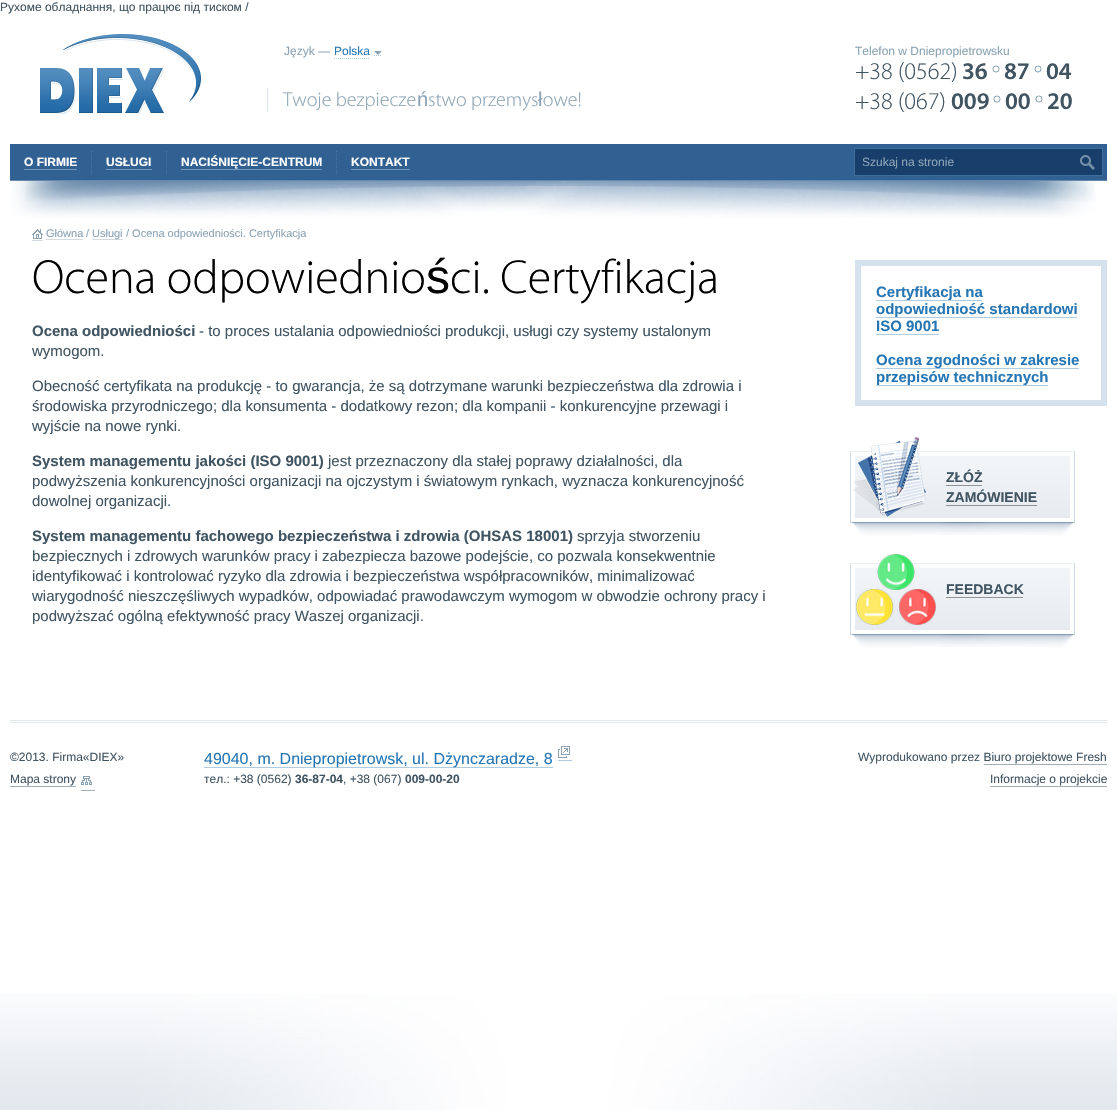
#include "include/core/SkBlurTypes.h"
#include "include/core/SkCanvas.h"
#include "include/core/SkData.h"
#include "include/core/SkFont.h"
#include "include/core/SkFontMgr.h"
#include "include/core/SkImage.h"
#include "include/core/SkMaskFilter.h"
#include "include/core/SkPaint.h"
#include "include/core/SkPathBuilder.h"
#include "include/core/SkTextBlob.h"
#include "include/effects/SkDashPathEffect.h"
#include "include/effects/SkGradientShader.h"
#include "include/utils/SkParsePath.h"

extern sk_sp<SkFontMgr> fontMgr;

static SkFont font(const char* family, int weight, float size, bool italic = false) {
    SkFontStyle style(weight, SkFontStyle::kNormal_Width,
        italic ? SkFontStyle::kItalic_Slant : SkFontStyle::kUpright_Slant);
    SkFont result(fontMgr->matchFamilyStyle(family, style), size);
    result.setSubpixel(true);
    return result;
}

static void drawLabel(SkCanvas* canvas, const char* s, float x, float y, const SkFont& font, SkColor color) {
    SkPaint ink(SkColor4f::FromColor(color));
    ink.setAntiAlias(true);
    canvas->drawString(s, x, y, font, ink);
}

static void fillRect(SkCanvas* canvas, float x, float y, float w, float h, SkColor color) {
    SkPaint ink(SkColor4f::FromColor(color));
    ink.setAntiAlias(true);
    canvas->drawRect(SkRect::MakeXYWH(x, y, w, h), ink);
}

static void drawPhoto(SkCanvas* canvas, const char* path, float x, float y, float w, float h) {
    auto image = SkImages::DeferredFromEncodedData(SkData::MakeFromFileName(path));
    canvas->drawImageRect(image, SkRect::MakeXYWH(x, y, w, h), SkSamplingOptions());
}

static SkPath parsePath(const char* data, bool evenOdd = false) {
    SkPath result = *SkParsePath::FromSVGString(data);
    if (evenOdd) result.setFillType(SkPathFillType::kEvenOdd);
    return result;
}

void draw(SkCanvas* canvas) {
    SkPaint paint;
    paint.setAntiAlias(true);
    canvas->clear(0xFFFFFFFF);
    drawPhoto(canvas, "assets/img1.png", 0, 994, 1117, 116);
    SkFont font1 = font("Liberation Sans", 400, 12);
    drawLabel(canvas, "Рухоме обладнання, що працює під тиском /", 0, 11, font1, 0xFF405462);
    drawPhoto(canvas, "assets/img2.png", 40, 34, 161, 80);
    drawLabel(canvas, "Język —", 284, 55, font1, 0xFF8CA4B5);
    paint.setStroke(true);
    paint.setStrokeWidth(1);
    paint.setColor(0xFFA9C9E1);
    paint.setPathEffect(SkDashPathEffect::Make({{1, 1}}, 0));
    canvas->drawPath(parsePath("M334 58.5H370M374 55.5H382"), paint);
    paint.setPathEffect(nullptr);
    drawLabel(canvas, "Polska", 334, 55, font1, 0xFF2676B4);
    paint.setStroke(false);
    paint.setColor(0xFF8BA3B4);
    canvas->drawPath(parsePath("M374 51H382L378 55Z"), paint);
    fillRect(canvas, 267, 88, 1, 23, 0xFFDCE3E8);
    SkFont font2 = font("Myriad", 300, 20);
    drawLabel(canvas, "Twoje bezpiecze", 283, 106, font2, 0xFF8CA4B5);
    SkFont font3 = font("Liberation Sans", 400, 20);
    drawLabel(canvas, "ń", 417, 106, font3, 0xFF8CA4B5);
    drawLabel(canvas, "stwo przemys owe!", 428, 106, font2, 0xFF8CA4B5);
    drawLabel(canvas, "ł", 538, 106, font3, 0xFF8CA4B5);
    drawLabel(canvas, "Telefon w Dniepropietrowsku", 855, 55, font1, 0xFF8CA4B5);
    SkFont font4 = font("Myriad", 300, 24);
    drawLabel(canvas, "+38 (0562)", 855, 79, font4, 0xFF405462);
    SkFont font5 = font("Myriad", 600, 24);
    drawLabel(canvas, "36", 962, 79, font5, 0xFF405462);
    drawPhoto(canvas, "assets/img3.png", 992, 65, 8, 8);
    drawLabel(canvas, "87", 1004, 79, font5, 0xFF405462);
    drawPhoto(canvas, "assets/img3.png", 1034, 65, 8, 8);
    drawLabel(canvas, "04", 1046, 79, font5, 0xFF405462);
    drawLabel(canvas, "+38 (067)", 855, 109, font4, 0xFF405462);
    drawLabel(canvas, "009", 951, 109, font5, 0xFF405462);
    drawPhoto(canvas, "assets/img3.png", 993, 95, 8, 8);
    drawLabel(canvas, "00", 1005, 109, font5, 0xFF405462);
    drawPhoto(canvas, "assets/img3.png", 1035, 95, 8, 8);
    drawLabel(canvas, "20", 1047, 109, font5, 0xFF405462);
    fillRect(canvas, 10, 144, 1097, 36, 0xFF316093);
    fillRect(canvas, 10, 180, 1097, 1, 0xFF6588AE);
    SkFont font6 = font("Liberation Sans", 700, 12);
    drawLabel(canvas, "О FIRMIE", 24, 166, font6, 0xFFFFFFFF);
    fillRect(canvas, 24, 169, 53, 1, 0xFF7696BA);
    paint.setStroke(true);
    paint.setColor(0xFF4A75A2);
    paint.setPathEffect(SkDashPathEffect::Make({{1, 1}}, 0));
    canvas->drawPath(parsePath("M91.5 151V174"), paint);
    paint.setPathEffect(nullptr);
    drawLabel(canvas, "USŁUGI", 106, 166, font6, 0xFFFFFFFF);
    fillRect(canvas, 106, 169, 46, 1, 0xFF7696BA);
    paint.setPathEffect(SkDashPathEffect::Make({{1, 1}}, 0));
    canvas->drawPath(parsePath("M166.5 151V174"), paint);
    paint.setPathEffect(nullptr);
    drawLabel(canvas, "NACIŚNIĘCIE-CENTRUM", 181, 166, font6, 0xFFFFFFFF);
    fillRect(canvas, 181, 169, 141, 1, 0xFF7696BA);
    paint.setPathEffect(SkDashPathEffect::Make({{1, 1}}, 0));
    canvas->drawPath(parsePath("M336.5 151V174"), paint);
    paint.setPathEffect(nullptr);
    drawLabel(canvas, "KONTAKT", 351, 166, font6, 0xFFFFFFFF);
    fillRect(canvas, 351, 169, 59, 1, 0xFF7696BA);
    paint.setStroke(false);
    paint.setColor(0xFF183F6C);
    canvas->drawRect(SkRect::MakeXYWH(854.5f, 148.5f, 248, 27), paint);
    paint.setStroke(true);
    paint.setColor(0xFF3D6C9D);
    canvas->drawRect(SkRect::MakeXYWH(854.5f, 148.5f, 248, 27), paint);
    drawLabel(canvas, "Szukaj na stronie", 862, 166, font1, 0xFF8CA4B5);
    drawPhoto(canvas, "assets/img4.png", 1080, 155, 15, 15);
    drawPhoto(canvas, "assets/img5.png", 11, 181, 1085, 37);
    fillRect(canvas, 32, 240, 11, 1, 0xFFD1DAE1);
    fillRect(canvas, 46, 239, 37, 1, 0xFFD1DAE1);
    drawPhoto(canvas, "assets/img6.png", 32, 229, 11, 10);
    SkFont font7 = font("Liberation Sans", 400, 11);
    drawLabel(canvas, "Główna", 46, 237, font7, 0xFF8CA4B5);
    drawLabel(canvas, "/", 86, 237, font7, 0xFF8CA4B5);
    fillRect(canvas, 92, 239, 31, 1, 0xFFD1DAE1);
    drawLabel(canvas, "Usługi", 92, 237, font7, 0xFF8CA4B5);
    drawLabel(canvas, "/ Ocena odpowiedniości. Certyfikacja", 126, 237, font7, 0xFF8CA4B5);
    SkFont font8 = font("Myriad", 300, 48);
    drawLabel(canvas, "Ocena odpowiednio", 32, 293, font8, 0xFF000000);
    SkFont font9 = font("Liberation Sans", 400, 48);
    drawLabel(canvas, "ś", 426, 293, font9, 0xFF000000);
    drawLabel(canvas, "ci. Certyfikacja", 450, 293, font8, 0xFF000000);
    SkFont font10 = font("Liberation Sans", 700, 15);
    drawLabel(canvas, "Ocena odpowiedniości", 32, 336, font10, 0xFF405462);
    SkFont font11 = font("Liberation Sans", 400, 15);
    drawLabel(canvas, "- to proces ustalania odpowiedniości produkcji, usługi czy systemy ustalonym", 199, 336, font11, 0xFF405462);
    drawLabel(canvas, "wymogom.", 32, 356, font11, 0xFF405462);
    drawLabel(canvas, "Obecność certyfikata na produkcję - to gwarancja, że są dotrzymane warunki bezpieczeństwa dla zdrowia i", 32, 391, font11, 0xFF405462);
    drawLabel(canvas, "środowiska przyrodniczego; dla konsumenta - dodatkowy rezon; dla kompanii - konkurencyjne przewagi i", 32, 411, font11, 0xFF405462);
    drawLabel(canvas, "wyjście na nowe rynki.", 32, 431, font11, 0xFF405462);
    drawLabel(canvas, "System managementu jakości (ISO 9001)", 32, 466, font10, 0xFF405462);
    drawLabel(canvas, "jest przeznaczony dla stałej poprawy działalności, dla", 328, 466, font11, 0xFF405462);
    drawLabel(canvas, "podwyższenia konkurencyjności organizacji na ojczystym i światowym rynkach, wyznacza konkurencyjność", 32, 486, font11, 0xFF405462);
    drawLabel(canvas, "dowolnej organizacji.", 32, 506, font11, 0xFF405462);
    drawLabel(canvas, "System managementu fachowego bezpieczeństwa i zdrowia (OHSAS 18001)", 32, 541, font10, 0xFF405462);
    drawLabel(canvas, "sprzyja stworzeniu", 577, 541, font11, 0xFF405462);
    drawLabel(canvas, "bezpiecznych i zdrowych warunków pracy i zabezpiecza bazowe podejście, co pozwala konsekwentnie", 32, 561, font11, 0xFF405462);
    drawLabel(canvas, "identyfikować i kontrolować ryzyko dla zdrowia i bezpieczeństwa współpracowników, minimalizować", 32, 581, font11, 0xFF405462);
    drawLabel(canvas, "wiarygodność nieszczęśliwych wypadków, odpowiadać prawodawczym wymogom w obwodzie ochrony pracy i", 32, 601, font11, 0xFF405462);
    drawLabel(canvas, "podwyższać ogólną efektywność pracy Waszej organizacji.", 32, 621, font11, 0xFF405462);
    paint.setStrokeWidth(6);
    paint.setColor(0xFFD5E2ED);
    canvas->drawRect(SkRect::MakeXYWH(858, 263, 246, 140), paint);
    fillRect(canvas, 876, 300, 106, 1, 0xFFAECCE3);
    drawLabel(canvas, "Certyfikacja na", 876, 297, font10, 0xFF2676B4);
    fillRect(canvas, 876, 317, 201, 1, 0xFFAECCE3);
    drawLabel(canvas, "odpowiedniość standardowi", 876, 314, font10, 0xFF2676B4);
    drawLabel(canvas, "ISO 9001", 876, 331, font10, 0xFF2676B4);
    fillRect(canvas, 876, 334, 63, 1, 0xFFAECCE3);
    fillRect(canvas, 876, 368, 203, 1, 0xFFAECCE3);
    drawLabel(canvas, "Ocena zgodności w zakresie", 876, 365, font10, 0xFF2676B4);
    fillRect(canvas, 876, 385, 172, 1, 0xFFAECCE3);
    drawLabel(canvas, "przepisów technicznych", 876, 382, font10, 0xFF2676B4);
    paint.setStroke(false);
    {
        const SkColor colors[] = {0xFFF3F6F9, 0xFFE6EAEF};
        const float stops[] = {0, 1};
        const SkPoint ends[] = {{963, 452}, {963, 522}};
        paint.setShader(SkGradientShader::MakeLinear(ends, colors, stops, 2, SkTileMode::kClamp));
        paint.setAlpha(255);
    }
    canvas->drawRect(SkRect::MakeXYWH(855, 456, 215, 62), paint);
    fillRect(canvas, 850, 451, 225, 1, 0xFFE8EEF4);
    fillRect(canvas, 1074, 451, 1, 72, 0xFFCFDAE6);
    fillRect(canvas, 850, 451, 1, 72, 0xFFCFDAE6);
    drawPhoto(canvas, "assets/img7.png", 853, 437, 73, 80);
    SkFont font12 = font("Liberation Sans", 700, 14);
    drawLabel(canvas, "ZŁÓŻ", 946, 482, font12, 0xFF405462);
    fillRect(canvas, 946, 485, 36, 1, 0xFF909395);
    drawLabel(canvas, "ZAMÓWIENIE", 946, 502, font12, 0xFF405462);
    fillRect(canvas, 946, 505, 91, 1, 0xFF909395);
    drawPhoto(canvas, "assets/img8.png", 851, 522, 198, 14);
    drawPhoto(canvas, "assets/img9.png", 1049, 522, 26, 14);
    {
        const SkColor colors[] = {0xFFF3F6F9, 0xFFE6EAEF};
        const float stops[] = {0, 1};
        const SkPoint ends[] = {{963, 564}, {963, 634}};
        paint.setShader(SkGradientShader::MakeLinear(ends, colors, stops, 2, SkTileMode::kClamp));
        paint.setAlpha(255);
    }
    canvas->drawRect(SkRect::MakeXYWH(855, 568, 215, 62), paint);
    fillRect(canvas, 850, 563, 225, 1, 0xFFE8EEF4);
    fillRect(canvas, 1074, 563, 1, 72, 0xFFCFDAE6);
    fillRect(canvas, 850, 563, 1, 72, 0xFFCFDAE6);
    drawPhoto(canvas, "assets/img10.png", 856, 554, 80, 71);
    drawLabel(canvas, "FEEDBACK", 946, 594, font12, 0xFF405462);
    fillRect(canvas, 946, 597, 77, 1, 0xFF909395);
    drawPhoto(canvas, "assets/img8.png", 851, 634, 198, 14);
    drawPhoto(canvas, "assets/img9.png", 1049, 634, 26, 14);
    fillRect(canvas, 10, 720, 1097, 1, 0xFFE3E8EE);
    fillRect(canvas, 10, 722, 1097, 1, 0xFFE3E8EE);
    drawLabel(canvas, "©2013. Firma«DIEX»", 10, 761, font1, 0xFF405462);
    fillRect(canvas, 10, 786, 66, 1, 0xFFA4AEB7);
    fillRect(canvas, 81, 790, 14, 1, 0xFFA4AEB7);
    drawLabel(canvas, "Mapa strony", 10, 783, font1, 0xFF405462);
    drawPhoto(canvas, "assets/img11.png", 81, 776, 11, 9);
    fillRect(canvas, 204, 767, 349, 1, 0xFFAECCE3);
    fillRect(canvas, 558, 760, 14, 1, 0xFFAECCE3);
    SkFont font13 = font("Liberation Sans", 400, 16);
    drawLabel(canvas, "49040, m. Dniepropietrowsk, ul. Dżynczaradze, 8", 204, 764, font13, 0xFF2676B4);
    drawPhoto(canvas, "assets/img12.png", 558, 746, 12, 12);
    drawLabel(canvas, "тел.: +38 (0562)", 204, 783, font1, 0xFF405462);
    drawLabel(canvas, "36-87-04", 295, 783, font6, 0xFF405462);
    drawLabel(canvas, ", +38 (067)", 343, 783, font1, 0xFF405462);
    drawLabel(canvas, "009-00-20", 405, 783, font6, 0xFF405462);
    drawLabel(canvas, "Wyprodukowano przez Biuro projektowe Fresh", 858, 761, font1, 0xFF405462);
    fillRect(canvas, 984, 764, 123, 1, 0xFFA4AEB7);
    drawLabel(canvas, "Informacje o projekcie", 990, 783, font1, 0xFF405462);
    fillRect(canvas, 990, 786, 117, 1, 0xFFA4AEB7);
}
